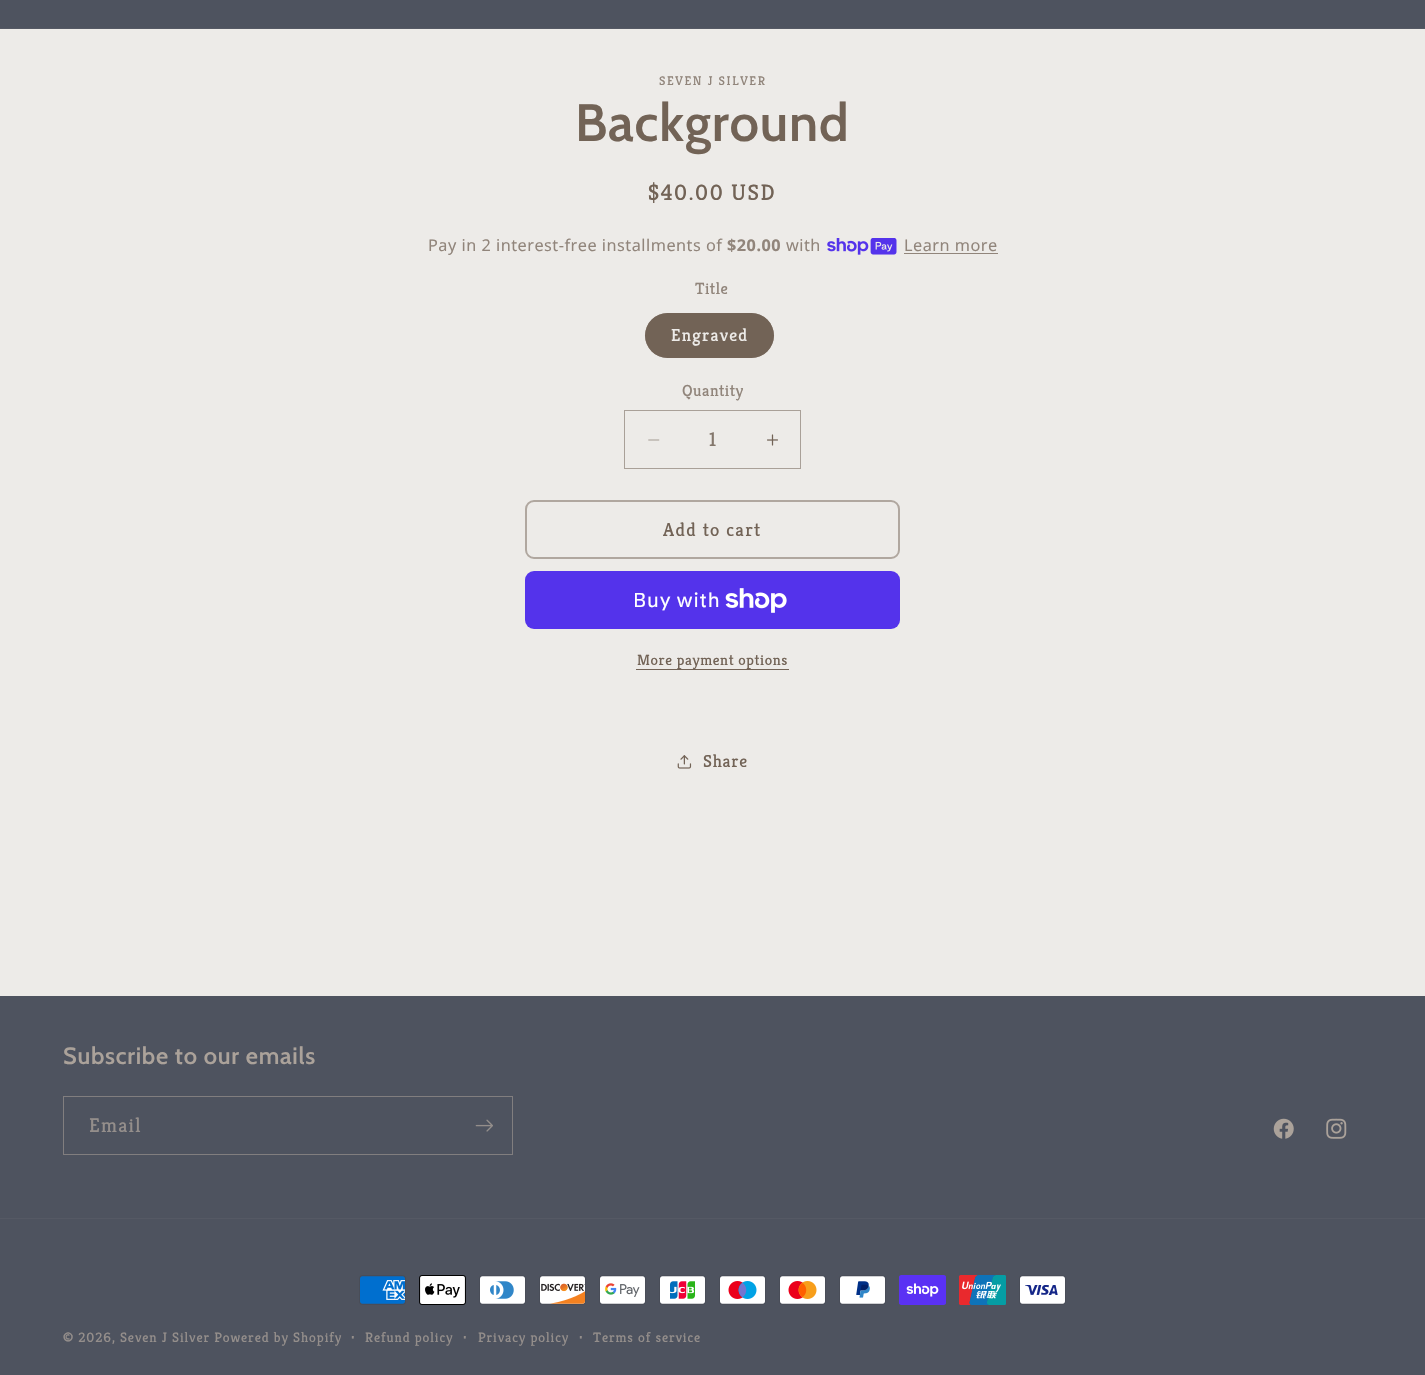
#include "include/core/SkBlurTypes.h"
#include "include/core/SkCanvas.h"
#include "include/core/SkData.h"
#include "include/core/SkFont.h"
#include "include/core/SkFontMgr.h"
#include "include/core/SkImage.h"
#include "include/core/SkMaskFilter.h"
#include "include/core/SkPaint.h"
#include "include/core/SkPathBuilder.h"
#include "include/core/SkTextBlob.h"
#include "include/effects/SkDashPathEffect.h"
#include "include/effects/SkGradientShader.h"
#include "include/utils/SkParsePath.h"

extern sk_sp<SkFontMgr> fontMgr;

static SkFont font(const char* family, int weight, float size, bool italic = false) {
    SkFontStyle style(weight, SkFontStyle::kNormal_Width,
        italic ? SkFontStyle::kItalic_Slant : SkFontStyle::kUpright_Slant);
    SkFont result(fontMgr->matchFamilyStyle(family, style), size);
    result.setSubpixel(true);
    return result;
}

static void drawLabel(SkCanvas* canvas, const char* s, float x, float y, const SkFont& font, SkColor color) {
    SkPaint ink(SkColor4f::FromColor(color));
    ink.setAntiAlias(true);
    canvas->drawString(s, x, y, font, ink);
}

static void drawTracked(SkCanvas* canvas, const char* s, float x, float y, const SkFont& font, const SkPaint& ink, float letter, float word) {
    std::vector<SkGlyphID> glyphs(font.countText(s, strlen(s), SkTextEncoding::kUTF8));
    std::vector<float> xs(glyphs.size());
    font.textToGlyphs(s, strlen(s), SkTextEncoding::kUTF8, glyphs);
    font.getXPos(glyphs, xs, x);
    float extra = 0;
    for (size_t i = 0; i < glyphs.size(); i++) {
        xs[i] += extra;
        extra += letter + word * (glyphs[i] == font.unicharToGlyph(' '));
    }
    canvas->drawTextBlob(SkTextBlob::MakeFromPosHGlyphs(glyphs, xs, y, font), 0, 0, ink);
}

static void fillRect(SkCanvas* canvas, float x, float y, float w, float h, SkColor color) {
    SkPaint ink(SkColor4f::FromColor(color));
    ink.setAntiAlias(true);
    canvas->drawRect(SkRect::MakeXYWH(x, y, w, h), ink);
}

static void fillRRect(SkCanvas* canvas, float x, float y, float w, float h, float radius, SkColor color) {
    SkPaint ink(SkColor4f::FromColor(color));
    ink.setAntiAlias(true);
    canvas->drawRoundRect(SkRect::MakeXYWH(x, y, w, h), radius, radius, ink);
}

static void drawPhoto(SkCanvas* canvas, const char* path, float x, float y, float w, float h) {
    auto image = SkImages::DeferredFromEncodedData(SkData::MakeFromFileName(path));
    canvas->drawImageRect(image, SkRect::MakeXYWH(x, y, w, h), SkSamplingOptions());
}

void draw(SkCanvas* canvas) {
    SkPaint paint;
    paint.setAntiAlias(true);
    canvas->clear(0xFFEDEBE8);
    fillRect(canvas, 0, 0, 1425, 28, 0xFF4E535F);
    fillRect(canvas, 0, 28, 1425, 1, 0xFF555964);
    SkFont font1 = font("Kreon", 400, 12.5f);
    paint.setColor(0xFF91857B);
    drawTracked(canvas, "SEVEN J SILVER", 659, 85, font1, paint, 1.6f, 0);
    SkFont font2 = font("Cabin", 600, 52.5f);
    paint.setColor(0xFF726356);
    drawTracked(canvas, "Background", 575, 141, font2, paint, 0.75f, 0);
    SkFont font3 = font("Kreon", 400, 22.5f);
    drawTracked(canvas, "$40.00 USD", 648, 200, font3, paint, 1.6f, 0);
    SkFont font4 = font("Noto Sans", 400, 16.25f);
    paint.setColor(0xFF91857B);
    drawTracked(canvas, "Pay in 2 interest-free installments of", 428, 251, font4, paint, 0.5f, 0);
    SkFont font5 = font("Noto Sans", 700, 16.25f);
    drawTracked(canvas, "$20.00", 727, 251, font5, paint, 0.5f, 0);
    drawTracked(canvas, "with", 786, 251, font4, paint, 0.5f, 0);
    drawPhoto(canvas, "assets/img1.png", 827, 238, 70, 17);
    drawTracked(canvas, "Learn more", 904, 251, font4, paint, 0.5f, 0);
    fillRect(canvas, 904, 253, 94, 1, 0xFF91857B);
    SkFont font6 = font("Kreon", 400, 16.25f);
    drawTracked(canvas, "Title", 695, 294, font6, paint, 0.5f, 0);
    fillRRect(canvas, 645, 313, 129, 45, 22.5f, 0xFF726356);
    paint.setStroke(true);
    paint.setStrokeWidth(1);
    paint.setColor(0x8C726356);
    canvas->drawRoundRect(SkRect::MakeXYWH(645.5f, 313.5f, 128, 44), 22, 22, paint);
    SkFont font7 = font("Kreon", 400, 17.5f);
    paint.setStroke(false);
    paint.setColor(0xFFEDEBE8);
    drawTracked(canvas, "Engraved", 671, 341, font7, paint, 1.25f, 0);
    paint.setColor(0xFF91857B);
    drawTracked(canvas, "Quantity", 682, 396, font6, paint, 0.5f, 0);
    drawPhoto(canvas, "assets/img2.png", 648, 439, 12, 2);
    drawPhoto(canvas, "assets/img3.png", 767, 434, 11, 12);
    paint.setStroke(true);
    paint.setColor(0xFFA9A098);
    canvas->drawRect(SkRect::MakeXYWH(624.5f, 410.5f, 176, 58), paint);
    SkFont font8 = font("Kreon", 400, 20);
    drawLabel(canvas, "1", 709, 446, font8, 0xFF84776C);
    paint.setStrokeWidth(2);
    paint.setColor(0xFFB0A79F);
    canvas->drawRoundRect(SkRect::MakeXYWH(526, 501, 373, 57), 8, 8, paint);
    SkFont font9 = font("Kreon", 400, 18.75f);
    paint.setStroke(false);
    paint.setColor(0xFF726356);
    drawTracked(canvas, "Add to cart", 663, 536, font9, paint, 1.25f, 0);
    fillRRect(canvas, 525, 571, 375, 58, 9, 0xFF5433EB);
    SkFont font10 = font("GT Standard", 400, 20);
    paint.setColor(0xFFFFFFFF);
    drawTracked(canvas, "Buy with", 633, 607, font10, paint, 0.75f, 0);
    drawPhoto(canvas, "assets/img4.png", 725, 588, 62, 25);
    fillRect(canvas, 636, 669, 153, 1, 0xFF726356);
    SkFont font11 = font("Kreon", 400, 15);
    paint.setColor(0xFF726356);
    drawTracked(canvas, "More payment options", 637, 665, font11, paint, 0.6f, 0);
    drawPhoto(canvas, "assets/img5.png", 677, 755, 15, 14);
    drawTracked(canvas, "Share", 703, 767, font7, paint, 0.75f, 0);
    fillRect(canvas, 0, 996, 1425, 379, 0xFF4E535F);
    SkFont font12 = font("Cabin", 600, 23.6f);
    paint.setColor(0xFFABA29A);
    drawTracked(canvas, "Subscribe to our emails", 63, 1064, font12, paint, 0.75f, 0);
    paint.setStroke(true);
    paint.setStrokeWidth(1);
    paint.setColor(0xFF817E7F);
    canvas->drawRect(SkRect::MakeXYWH(63.5f, 1096.5f, 449, 58), paint);
    paint.setStroke(false);
    paint.setColor(0xFF948E8B);
    drawTracked(canvas, "Email", 89, 1132, font8, paint, 1.25f, 0);
    drawPhoto(canvas, "assets/img6.png", 475, 1119, 18, 13);
    drawPhoto(canvas, "assets/img7.png", 1273, 1118, 21, 21);
    drawPhoto(canvas, "assets/img8.png", 1326, 1118, 21, 21);
    fillRect(canvas, 0, 1218, 1425, 1, 0xFF555964);
    drawPhoto(canvas, "assets/img9.png", 359, 1275, 47, 30);
    drawPhoto(canvas, "assets/img10.png", 419, 1275, 47, 30);
    drawPhoto(canvas, "assets/img11.png", 479, 1275, 47, 30);
    drawPhoto(canvas, "assets/img12.png", 539, 1275, 47, 30);
    drawPhoto(canvas, "assets/img13.png", 599, 1275, 47, 30);
    drawPhoto(canvas, "assets/img14.png", 659, 1275, 47, 30);
    drawPhoto(canvas, "assets/img15.png", 719, 1275, 47, 30);
    drawPhoto(canvas, "assets/img16.png", 779, 1275, 47, 30);
    drawPhoto(canvas, "assets/img17.png", 839, 1275, 47, 30);
    drawPhoto(canvas, "assets/img18.png", 899, 1275, 47, 30);
    drawPhoto(canvas, "assets/img19.png", 959, 1275, 47, 30);
    drawPhoto(canvas, "assets/img20.png", 1019, 1275, 47, 30);
    SkFont font13 = font("Kreon", 400, 13.75f);
    drawTracked(canvas, "© 2026, Seven J Silver Powered by Shopify", 63, 1342, font13, paint, 0.9f, 0);
    drawTracked(canvas, "·", 351, 1342, font11, paint, 0.9f, 0);
    drawTracked(canvas, "Refund policy", 365, 1342, font13, paint, 0.9f, 0);
    drawTracked(canvas, "·", 463, 1342, font11, paint, 0.9f, 0);
    drawTracked(canvas, "Privacy policy", 478, 1342, font13, paint, 0.9f, 0);
    drawTracked(canvas, "·", 579, 1342, font11, paint, 0.9f, 0);
    drawTracked(canvas, "Terms of service", 593, 1342, font13, paint, 0.9f, 0);
}
